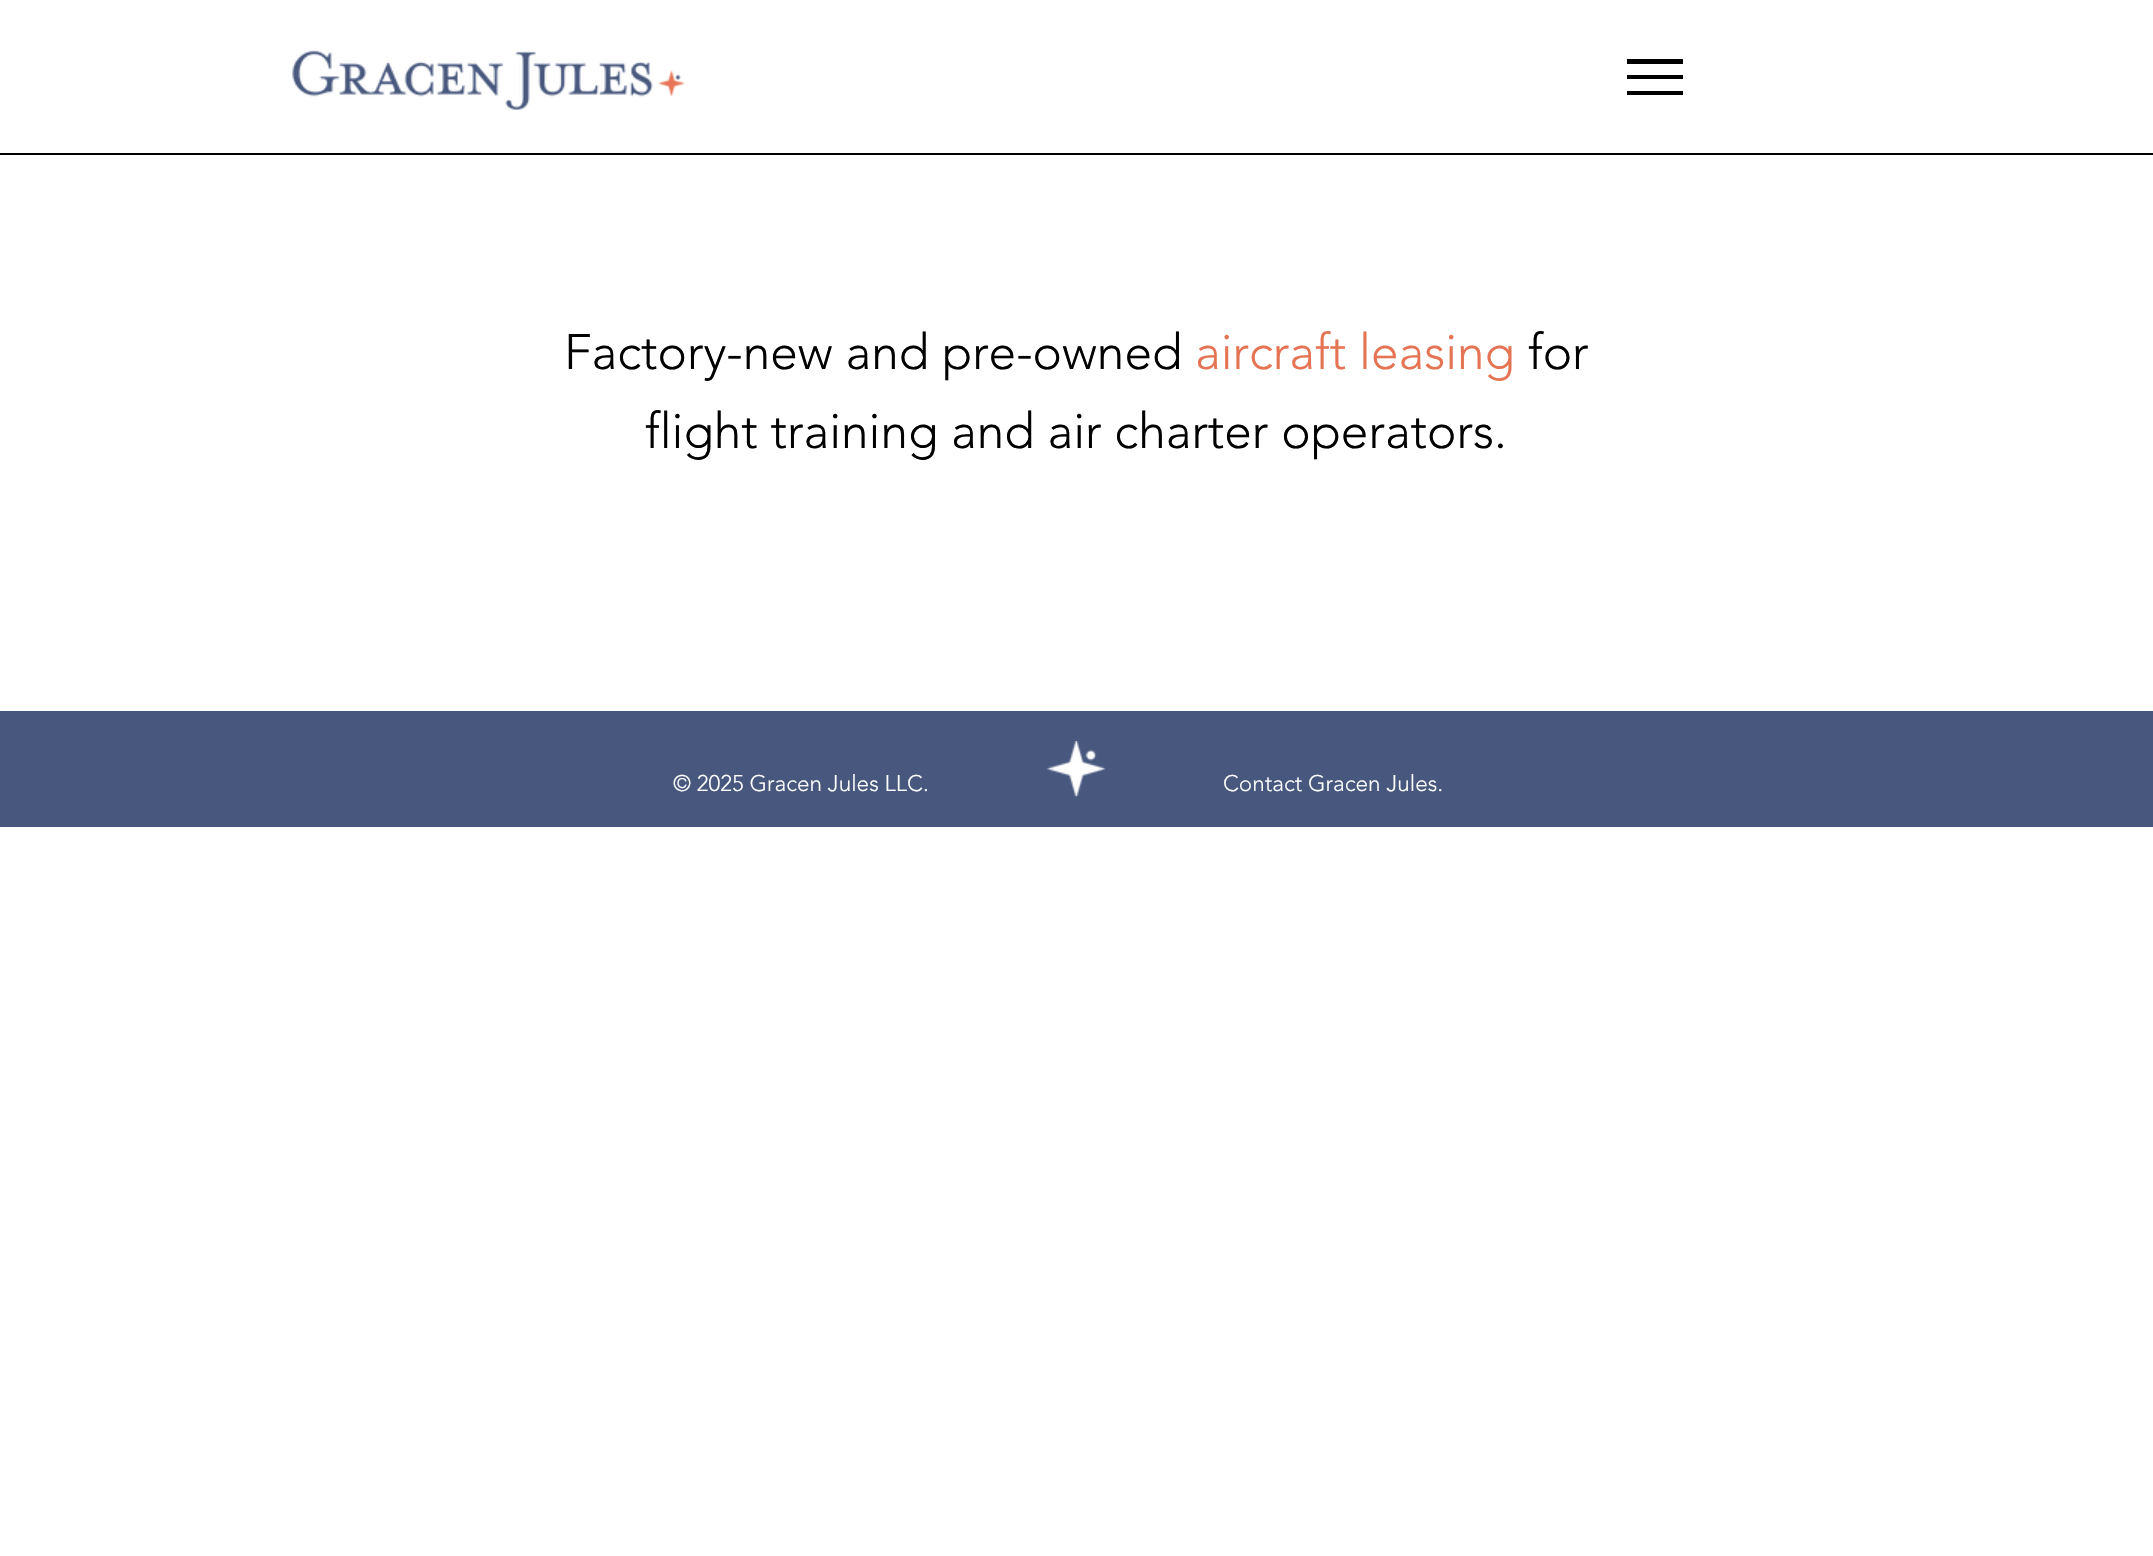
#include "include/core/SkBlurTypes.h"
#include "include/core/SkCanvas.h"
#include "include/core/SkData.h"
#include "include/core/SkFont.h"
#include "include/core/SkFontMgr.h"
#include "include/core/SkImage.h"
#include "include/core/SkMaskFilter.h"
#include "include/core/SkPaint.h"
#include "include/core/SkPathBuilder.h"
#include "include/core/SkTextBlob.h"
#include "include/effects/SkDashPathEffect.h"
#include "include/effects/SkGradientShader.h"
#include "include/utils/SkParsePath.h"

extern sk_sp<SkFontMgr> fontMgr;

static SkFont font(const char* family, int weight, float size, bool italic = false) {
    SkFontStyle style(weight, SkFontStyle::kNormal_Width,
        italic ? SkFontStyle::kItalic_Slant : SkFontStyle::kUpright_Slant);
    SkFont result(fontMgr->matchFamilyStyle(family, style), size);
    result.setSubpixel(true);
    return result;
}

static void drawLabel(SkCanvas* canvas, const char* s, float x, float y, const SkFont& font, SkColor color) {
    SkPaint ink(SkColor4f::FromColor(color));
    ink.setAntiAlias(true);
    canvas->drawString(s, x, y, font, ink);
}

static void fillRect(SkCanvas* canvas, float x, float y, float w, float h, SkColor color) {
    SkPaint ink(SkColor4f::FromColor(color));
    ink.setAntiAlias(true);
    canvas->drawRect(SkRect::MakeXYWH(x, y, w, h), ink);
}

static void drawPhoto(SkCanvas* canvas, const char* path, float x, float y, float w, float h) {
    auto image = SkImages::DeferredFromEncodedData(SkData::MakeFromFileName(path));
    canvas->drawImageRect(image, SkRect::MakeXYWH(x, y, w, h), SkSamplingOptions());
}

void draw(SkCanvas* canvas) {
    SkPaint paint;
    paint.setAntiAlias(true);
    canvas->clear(0xFFFFFFFF);
    drawPhoto(canvas, "assets/img1.png", 292, 50, 393, 61);
    fillRect(canvas, 1627, 91, 56, 4, 0xFF000000);
    fillRect(canvas, 1627, 59, 56, 5, 0xFF000000);
    fillRect(canvas, 1627, 75, 56, 4, 0xFF000000);
    fillRect(canvas, 0, 153, 2153, 2, 0xFF000000);
    SkFont font1 = font("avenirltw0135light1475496", 300, 49.5f);
    drawLabel(canvas, "Factory-new and pre-owned", 564, 369, font1, 0xFF000000);
    drawLabel(canvas, "aircraft leasing", 1195, 369, font1, 0xFFE57454);
    drawLabel(canvas, "for", 1528, 369, font1, 0xFF000000);
    drawLabel(canvas, "flight training and air charter operators.", 645, 448, font1, 0xFF000000);
    fillRect(canvas, 0, 711, 2153, 116, 0xFF47577D);
    SkFont font2 = font("avenirltw0135light1475496", 300, 22.5f);
    drawLabel(canvas, "© 2025 Gracen Jules LLC.", 673, 791, font2, 0xFFFFFFFF);
    drawPhoto(canvas, "assets/img2.png", 1047, 741, 59, 56);
    drawLabel(canvas, "Contact Gracen Jules.", 1223, 791, font2, 0xFFFFFFFF);
}
